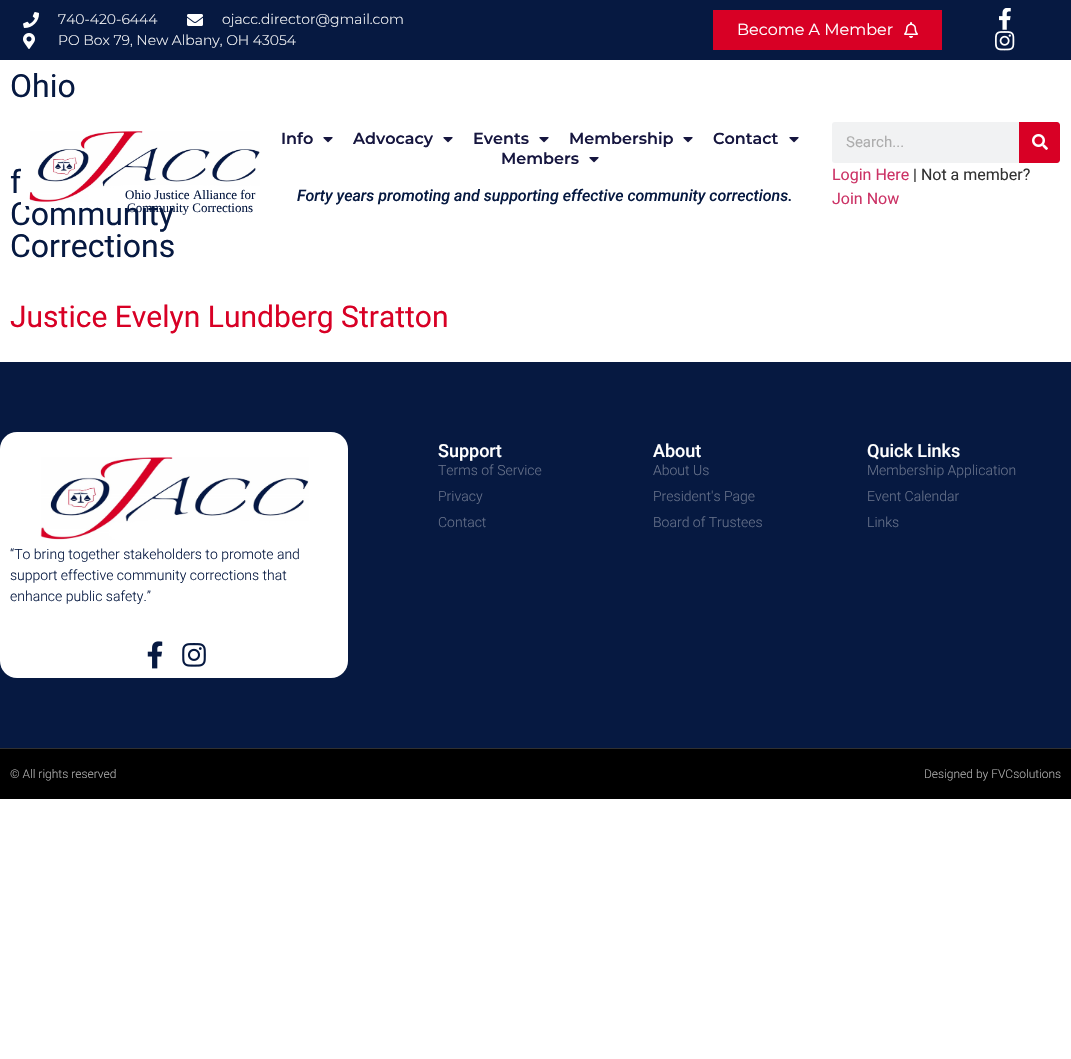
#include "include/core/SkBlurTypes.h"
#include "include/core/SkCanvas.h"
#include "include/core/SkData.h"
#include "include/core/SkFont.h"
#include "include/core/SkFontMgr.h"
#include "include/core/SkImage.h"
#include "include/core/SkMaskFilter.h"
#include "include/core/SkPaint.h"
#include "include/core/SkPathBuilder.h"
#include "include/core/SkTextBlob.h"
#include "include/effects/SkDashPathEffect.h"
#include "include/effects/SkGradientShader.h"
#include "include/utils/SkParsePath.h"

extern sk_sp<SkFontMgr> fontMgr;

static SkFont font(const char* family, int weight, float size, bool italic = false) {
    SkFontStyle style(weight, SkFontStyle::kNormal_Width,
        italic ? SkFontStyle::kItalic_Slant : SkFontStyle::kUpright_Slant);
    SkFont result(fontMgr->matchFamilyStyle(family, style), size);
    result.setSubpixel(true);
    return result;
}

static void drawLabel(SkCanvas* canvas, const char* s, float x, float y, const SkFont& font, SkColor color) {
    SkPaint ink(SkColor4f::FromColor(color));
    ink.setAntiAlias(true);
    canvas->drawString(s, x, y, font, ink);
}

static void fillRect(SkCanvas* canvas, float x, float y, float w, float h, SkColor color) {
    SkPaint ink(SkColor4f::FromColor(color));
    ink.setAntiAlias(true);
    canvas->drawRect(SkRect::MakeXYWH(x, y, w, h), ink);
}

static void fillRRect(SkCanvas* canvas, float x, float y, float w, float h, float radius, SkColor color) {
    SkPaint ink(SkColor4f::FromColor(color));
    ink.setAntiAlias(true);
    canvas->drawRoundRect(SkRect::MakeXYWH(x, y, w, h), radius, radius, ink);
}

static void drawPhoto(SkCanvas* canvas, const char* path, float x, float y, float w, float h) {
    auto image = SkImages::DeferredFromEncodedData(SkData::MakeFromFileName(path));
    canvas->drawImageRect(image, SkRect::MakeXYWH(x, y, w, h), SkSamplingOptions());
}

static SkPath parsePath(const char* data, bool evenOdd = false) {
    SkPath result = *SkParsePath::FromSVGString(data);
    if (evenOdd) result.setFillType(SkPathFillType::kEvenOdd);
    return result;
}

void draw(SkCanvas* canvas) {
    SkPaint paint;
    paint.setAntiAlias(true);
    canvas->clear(0xFFFFFFFF);
    fillRect(canvas, 0, 0, 1071, 60, 0xFF061941);
    drawPhoto(canvas, "assets/img1.png", 23, 12, 16, 16);
    SkFont font1 = font("Montserrat", 300, 14);
    drawLabel(canvas, "740-420-6444", 58, 24, font1, 0xFFFFFFFF);
    drawPhoto(canvas, "assets/img2.png", 187, 14, 16, 12);
    drawLabel(canvas, "ojacc.director@gmail.com", 222, 24, font1, 0xFFFFFFFF);
    drawPhoto(canvas, "assets/img3.png", 23, 33, 12, 16);
    drawLabel(canvas, "PO Box 79, New Albany, OH 43054", 58, 45, font1, 0xFFFFFFFF);
    fillRect(canvas, 713, 10, 229, 40, 0xFFD80025);
    SkFont font2 = font("Montserrat", 400, 16);
    drawLabel(canvas, "Become A Member", 737, 35, font2, 0xFFFFFFFF);
    drawPhoto(canvas, "assets/img4.png", 904, 22, 14, 16);
    drawPhoto(canvas, "assets/img5.png", 999, 8, 12, 22);
    drawPhoto(canvas, "assets/img6.png", 995, 31, 20, 20);
    SkFont font3 = font("Roboto", 400, 32);
    drawLabel(canvas, "Ohio", 10, 97, font3, 0xFF061941);
    drawLabel(canvas, "f", 10, 193, font3, 0xFF061941);
    drawLabel(canvas, "Community", 10, 225, font3, 0xFF061941);
    drawLabel(canvas, "Corrections", 10, 257, font3, 0xFF061941);
    drawPhoto(canvas, "assets/img7.png", 21, 118, 239, 88);
    SkFont font4 = font("Liberation Serif", 400, 13);
    drawLabel(canvas, "Ohio Justice Alliance for", 125, 199, font4, 0xFF061941);
    drawLabel(canvas, "Community Corrections", 127, 212, font4, 0xFF061941);
    SkFont font5 = font("Montserrat", 600, 16);
    drawLabel(canvas, "Info", 281, 144, font5, 0xFF16163F);
    drawPhoto(canvas, "assets/img8.png", 323, 137, 10, 6);
    drawLabel(canvas, "Advocacy", 353, 144, font5, 0xFF16163F);
    drawPhoto(canvas, "assets/img8.png", 443, 137, 10, 6);
    drawLabel(canvas, "Events", 473, 144, font5, 0xFF16163F);
    drawPhoto(canvas, "assets/img8.png", 539, 137, 10, 6);
    drawLabel(canvas, "Membership", 569, 144, font5, 0xFF16163F);
    drawPhoto(canvas, "assets/img8.png", 683, 137, 10, 6);
    drawLabel(canvas, "Contact", 713, 144, font5, 0xFF16163F);
    drawPhoto(canvas, "assets/img8.png", 789, 137, 10, 6);
    drawLabel(canvas, "Members", 501, 164, font5, 0xFF16163F);
    drawPhoto(canvas, "assets/img8.png", 589, 157, 10, 6);
    SkFont font6 = font("Roboto", 500, 16, true);
    drawLabel(canvas, "Forty years promoting and supporting effective community corrections.", 297, 201, font6, 0xFF061941);
    fillRRect(canvas, 832, 122, 228, 41, 3, 0xFFF1F2F3);
    SkFont font7 = font("Roboto", 400, 15);
    drawLabel(canvas, "Search...", 846, 147, font7, 0xFFADADAD);
    paint.setColor(0xFFD80025);
    canvas->drawPath(parsePath("M1019 122H1057C1058.5 122 1060 123.5 1060 125V160C1060 161.5 1058.5 163 1057 163H1019Z"), paint);
    drawPhoto(canvas, "assets/img9.png", 1032, 134, 16, 16);
    SkFont font8 = font("Roboto", 400, 16);
    drawLabel(canvas, "Login Here", 832, 180, font8, 0xFFCC3366);
    drawLabel(canvas, "| Not a member?", 913, 180, font8, 0xFF333333);
    drawLabel(canvas, "Join Now", 832, 204, font8, 0xFFCC3366);
    SkFont font9 = font("Roboto", 400, 30);
    drawLabel(canvas, "Justice Evelyn Lundberg Stratton", 10, 327, font9, 0xFFD80025);
    fillRect(canvas, 0, 362, 1071, 386, 0xFF061941);
    SkFont font10 = font("Roboto", 500, 18);
    drawLabel(canvas, "Support", 438, 457, font10, 0xFFFFFFFF);
    SkFont font11 = font("Roboto", 300, 14);
    drawLabel(canvas, "Terms of Service", 438, 475, font11, 0xFF657089);
    drawLabel(canvas, "Privacy", 438, 501, font11, 0xFF657089);
    drawLabel(canvas, "Contact", 438, 527, font11, 0xFF657089);
    drawLabel(canvas, "About", 653, 457, font10, 0xFFFFFFFF);
    drawLabel(canvas, "About Us", 653, 475, font11, 0xFF657089);
    drawLabel(canvas, "President's Page", 653, 501, font11, 0xFF657089);
    drawLabel(canvas, "Board of Trustees", 653, 527, font11, 0xFF657089);
    drawLabel(canvas, "Quick Links", 867, 457, font10, 0xFFFFFFFF);
    drawLabel(canvas, "Membership Application", 867, 475, font11, 0xFF657089);
    drawLabel(canvas, "Event Calendar", 867, 501, font11, 0xFF657089);
    drawLabel(canvas, "Links", 867, 527, font11, 0xFF657089);
    fillRRect(canvas, 0, 432, 348, 246, 17, 0xFFFFFFFF);
    drawPhoto(canvas, "assets/img10.png", 40, 457, 269, 83);
    drawLabel(canvas, "“To bring together stakeholders to promote and", 10, 559, font11, 0xFF061941);
    drawLabel(canvas, "support effective community corrections that", 10, 580, font11, 0xFF061941);
    drawLabel(canvas, "enhance public safety.”", 10, 601, font11, 0xFF061941);
    drawPhoto(canvas, "assets/img11.png", 147, 641, 16, 28);
    drawPhoto(canvas, "assets/img12.png", 182, 643, 24, 24);
    fillRect(canvas, 0, 749, 1071, 50, 0xFF000000);
    fillRect(canvas, 0, 748, 1071, 1, 0xFF303030);
    SkFont font12 = font("Roboto", 300, 12);
    drawLabel(canvas, "© All rights reserved", 10, 778, font12, 0xFFADADAD);
    drawLabel(canvas, "Designed by FVCsolutions", 924, 778, font12, 0xFFADADAD);
}
